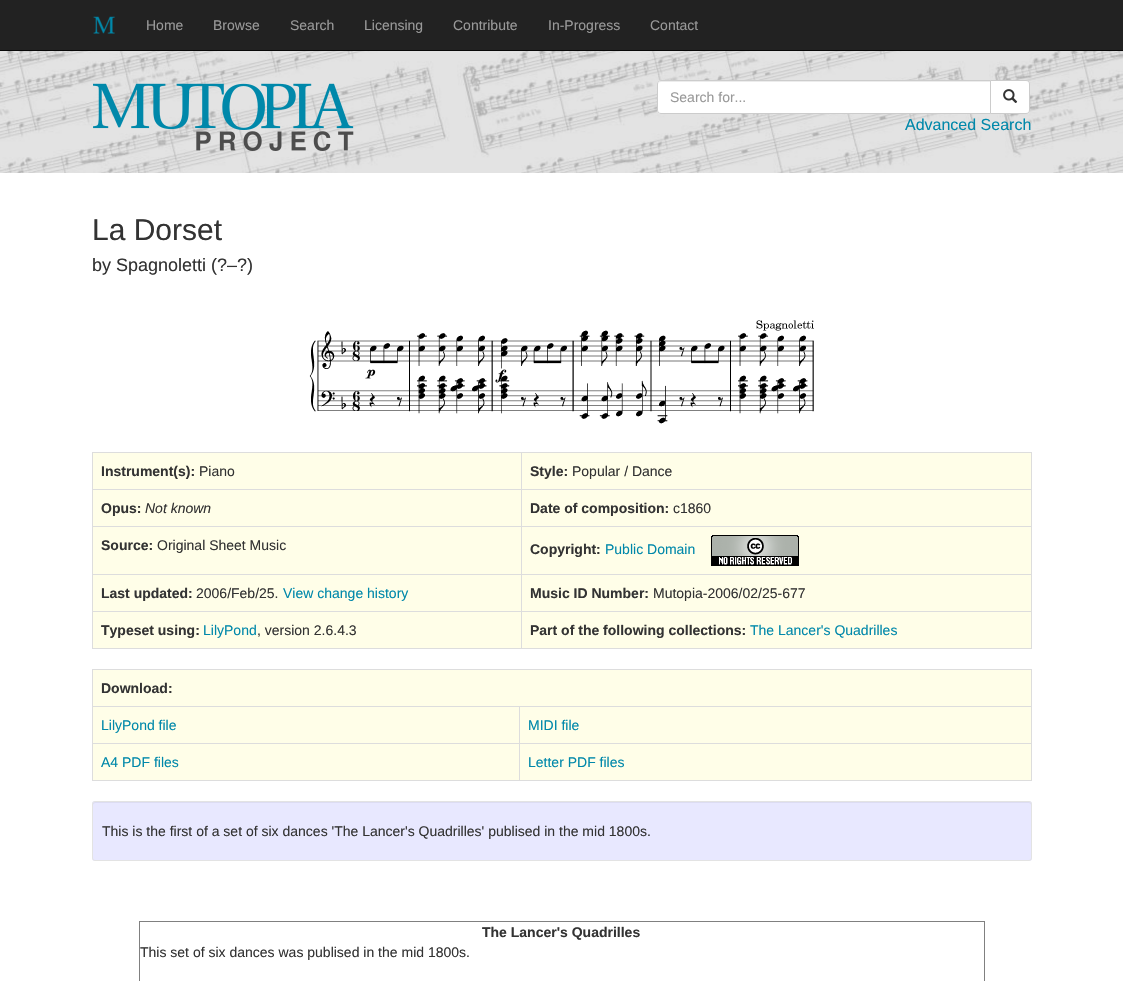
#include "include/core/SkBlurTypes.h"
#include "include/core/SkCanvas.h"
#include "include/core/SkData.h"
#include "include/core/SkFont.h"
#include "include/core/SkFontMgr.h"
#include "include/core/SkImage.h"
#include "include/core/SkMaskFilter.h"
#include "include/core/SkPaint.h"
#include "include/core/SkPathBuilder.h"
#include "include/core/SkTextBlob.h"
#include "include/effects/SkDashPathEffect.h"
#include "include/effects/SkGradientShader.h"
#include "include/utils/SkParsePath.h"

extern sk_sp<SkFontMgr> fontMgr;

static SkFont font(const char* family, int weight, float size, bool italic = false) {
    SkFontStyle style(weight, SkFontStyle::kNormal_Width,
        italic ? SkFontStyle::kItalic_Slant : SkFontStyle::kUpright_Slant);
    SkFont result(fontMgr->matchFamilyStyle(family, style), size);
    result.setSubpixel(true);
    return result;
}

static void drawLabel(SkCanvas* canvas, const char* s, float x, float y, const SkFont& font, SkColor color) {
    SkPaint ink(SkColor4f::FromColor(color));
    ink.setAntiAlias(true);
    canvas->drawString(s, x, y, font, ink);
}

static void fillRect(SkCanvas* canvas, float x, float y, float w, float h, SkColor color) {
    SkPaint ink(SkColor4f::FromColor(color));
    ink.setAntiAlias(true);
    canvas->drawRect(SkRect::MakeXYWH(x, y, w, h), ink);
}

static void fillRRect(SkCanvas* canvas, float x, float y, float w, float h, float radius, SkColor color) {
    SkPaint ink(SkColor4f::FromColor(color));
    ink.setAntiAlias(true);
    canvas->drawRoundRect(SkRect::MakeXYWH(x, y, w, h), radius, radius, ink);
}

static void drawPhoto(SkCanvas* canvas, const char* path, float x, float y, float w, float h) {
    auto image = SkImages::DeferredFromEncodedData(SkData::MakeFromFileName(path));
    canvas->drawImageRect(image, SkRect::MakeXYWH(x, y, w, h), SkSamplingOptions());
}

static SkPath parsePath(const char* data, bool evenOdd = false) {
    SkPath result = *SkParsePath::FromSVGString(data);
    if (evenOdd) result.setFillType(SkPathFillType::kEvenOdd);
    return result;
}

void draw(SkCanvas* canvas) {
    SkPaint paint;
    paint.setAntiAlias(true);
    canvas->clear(0xFFFFFFFF);
    fillRect(canvas, 0, 0, 1123, 50, 0xFF222222);
    fillRect(canvas, 0, 50, 1123, 1, 0xFF080808);
    drawPhoto(canvas, "assets/img1.png", 93, 16, 22, 18);
    SkFont font1 = font("Liberation Sans", 400, 14);
    drawLabel(canvas, "Home", 146, 30, font1, 0xFF999999);
    drawLabel(canvas, "Browse", 213, 30, font1, 0xFF999999);
    drawLabel(canvas, "Search", 290, 30, font1, 0xFF999999);
    drawLabel(canvas, "Licensing", 364, 30, font1, 0xFF999999);
    drawLabel(canvas, "Contribute", 453, 30, font1, 0xFF999999);
    drawLabel(canvas, "In-Progress", 548, 30, font1, 0xFF999999);
    drawLabel(canvas, "Contact", 650, 30, font1, 0xFF999999);
    drawPhoto(canvas, "assets/img2.png", 0, 51, 1123, 122);
    drawPhoto(canvas, "assets/img3.png", 93, 83, 261, 68);
    paint.setColor(0xFFFFFFFF);
    canvas->drawPath(parsePath("M661 80H991V114H661C659 114 657 112 657 110V84C657 82 659 80 661 80Z"), paint);
    paint.setColor(0xFFECECEC);
    canvas->drawPath(parsePath("M661 82H990V81H661C659 81 658 83 658 85C658 83 659 82 661 82Z"), paint);
    paint.setStroke(true);
    paint.setStrokeWidth(1);
    paint.setColor(0xFFCCCCCC);
    canvas->drawPath(parsePath("M661 80.5H990.5V113.5H661C659 113.5 657.5 112 657.5 110V84C657.5 82 659 80.5 661 80.5Z"), paint);
    drawLabel(canvas, "Search for...", 670, 102, font1, 0xFF999999);
    paint.setStroke(false);
    paint.setColor(0xFFFFFFFF);
    canvas->drawPath(parsePath("M990.5 80.5H1026C1028 80.5 1029.5 82 1029.5 84V110C1029.5 112 1028 113.5 1026 113.5H990.5Z"), paint);
    paint.setStroke(true);
    paint.setColor(0xFFCCCCCC);
    canvas->drawPath(parsePath("M990.5 80.5H1026C1028 80.5 1029.5 82 1029.5 84V110C1029.5 112 1028 113.5 1026 113.5H990.5Z"), paint);
    drawPhoto(canvas, "assets/img4.png", 1003, 89, 15, 14);
    SkFont font2 = font("Liberation Sans", 400, 16);
    drawLabel(canvas, "Advanced Search", 905, 130, font2, 0xFF0088AA);
    SkFont font3 = font("Liberation Sans", 400, 30);
    drawLabel(canvas, "La Dorset", 92, 240, font3, 0xFF333333);
    SkFont font4 = font("Liberation Sans", 400, 18);
    drawLabel(canvas, "by Spagnoletti (?–?)", 92, 271, font4, 0xFF333333);
    drawPhoto(canvas, "assets/img5.png", 309, 320, 505, 104);
    fillRect(canvas, 93, 453, 938, 195, 0xFFFFFEE8);
    fillRect(canvas, 92, 452, 940, 1, 0xFFDDDDDD);
    fillRect(canvas, 1031, 452, 1, 197, 0xFFDDDDDD);
    fillRect(canvas, 92, 648, 940, 1, 0xFFDDDDDD);
    fillRect(canvas, 92, 452, 1, 197, 0xFFDDDDDD);
    SkFont font5 = font("Liberation Sans", 700, 14);
    drawLabel(canvas, "Instrument(s):", 101, 476, font5, 0xFF333333);
    drawLabel(canvas, "Piano", 199, 476, font1, 0xFF333333);
    fillRect(canvas, 521, 489, 511, 1, 0xFFDDDDDD);
    fillRect(canvas, 521, 526, 511, 1, 0xFFDDDDDD);
    fillRect(canvas, 521, 574, 511, 1, 0xFFDDDDDD);
    fillRect(canvas, 521, 611, 511, 1, 0xFFDDDDDD);
    fillRect(canvas, 521, 611, 1, 38, 0xFFDDDDDD);
    fillRect(canvas, 92, 611, 430, 1, 0xFFDDDDDD);
    fillRect(canvas, 521, 574, 1, 38, 0xFFDDDDDD);
    fillRect(canvas, 92, 574, 430, 1, 0xFFDDDDDD);
    fillRect(canvas, 521, 526, 1, 49, 0xFFDDDDDD);
    fillRect(canvas, 92, 526, 430, 1, 0xFFDDDDDD);
    fillRect(canvas, 521, 489, 1, 38, 0xFFDDDDDD);
    fillRect(canvas, 92, 489, 430, 1, 0xFFDDDDDD);
    fillRect(canvas, 521, 452, 1, 38, 0xFFDDDDDD);
    drawLabel(canvas, "Style:", 530, 476, font5, 0xFF333333);
    drawLabel(canvas, "Popular / Dance", 572, 476, font1, 0xFF333333);
    drawLabel(canvas, "Opus:", 101, 513, font5, 0xFF333333);
    SkFont font6 = font("Liberation Sans", 400, 14, true);
    drawLabel(canvas, "Not known", 145, 513, font6, 0xFF333333);
    drawLabel(canvas, "Date of composition:", 530, 513, font5, 0xFF333333);
    drawLabel(canvas, "c1860", 673, 513, font1, 0xFF333333);
    drawLabel(canvas, "Source:", 101, 550, font5, 0xFF333333);
    drawLabel(canvas, "Original Sheet Music", 157, 550, font1, 0xFF333333);
    drawLabel(canvas, "Copyright:", 530, 554, font5, 0xFF333333);
    drawLabel(canvas, "Public Domain", 605, 554, font1, 0xFF0088AA);
    drawPhoto(canvas, "assets/img6.png", 711, 535, 88, 31);
    drawLabel(canvas, "Last updated:", 101, 598, font5, 0xFF333333);
    drawLabel(canvas, "2006/Feb/25.", 196, 598, font1, 0xFF333333);
    drawLabel(canvas, "View change history", 283, 598, font1, 0xFF0088AA);
    drawLabel(canvas, "Music ID Number:", 530, 598, font5, 0xFF333333);
    drawLabel(canvas, "Mutopia-2006/02/25-677", 653, 598, font1, 0xFF333333);
    drawLabel(canvas, "Typeset using:", 101, 635, font5, 0xFF333333);
    drawLabel(canvas, "LilyPond", 203, 635, font1, 0xFF0088AA);
    drawLabel(canvas, ", version 2.6.4.3", 257, 635, font1, 0xFF333333);
    drawLabel(canvas, "Part of the following collections:", 530, 635, font5, 0xFF333333);
    drawLabel(canvas, "The Lancer's Quadrilles", 750, 635, font1, 0xFF0088AA);
    fillRect(canvas, 93, 670, 938, 110, 0xFFFFFEE8);
    fillRect(canvas, 92, 669, 940, 1, 0xFFDDDDDD);
    fillRect(canvas, 1031, 669, 1, 112, 0xFFDDDDDD);
    fillRect(canvas, 92, 780, 940, 1, 0xFFDDDDDD);
    fillRect(canvas, 92, 669, 1, 112, 0xFFDDDDDD);
    drawLabel(canvas, "Download:", 101, 693, font5, 0xFF333333);
    fillRect(canvas, 519, 706, 513, 1, 0xFFDDDDDD);
    fillRect(canvas, 519, 743, 513, 1, 0xFFDDDDDD);
    fillRect(canvas, 519, 743, 1, 38, 0xFFDDDDDD);
    fillRect(canvas, 92, 743, 428, 1, 0xFFDDDDDD);
    fillRect(canvas, 519, 706, 1, 38, 0xFFDDDDDD);
    fillRect(canvas, 92, 706, 428, 1, 0xFFDDDDDD);
    drawLabel(canvas, "LilyPond file", 101, 730, font1, 0xFF0088AA);
    drawLabel(canvas, "MIDI file", 528, 730, font1, 0xFF0088AA);
    drawLabel(canvas, "A4 PDF files", 101, 767, font1, 0xFF0088AA);
    drawLabel(canvas, "Letter PDF files", 528, 767, font1, 0xFF0088AA);
    fillRRect(canvas, 92, 801, 940, 60, 3, 0xFFE8E8FF);
    paint.setStroke(false);
    paint.setColor(0xFFDCDCF2);
    canvas->drawPath(parsePath("M95 803H1029C1030 803 1031 804 1031 805V804C1031 803 1030 802 1029 802H95C94 802 93 803 93 804V805C93 804 94 803 95 803Z"), paint);
    paint.setStroke(true);
    paint.setColor(0xFFE3E3E3);
    canvas->drawRoundRect(SkRect::MakeXYWH(92.5f, 801.5f, 939, 59), 2.5f, 2.5f, paint);
    drawLabel(canvas, "This is the first of a set of six dances 'The Lancer's Quadrilles' publised in the mid 1800s.", 102, 836, font1, 0xFF333333);
    fillRect(canvas, 139, 921, 846, 1, 0xFF808080);
    fillRect(canvas, 984, 921, 1, 60, 0xFF808080);
    fillRect(canvas, 139, 921, 1, 60, 0xFF808080);
    drawLabel(canvas, "The Lancer's Quadrilles", 482, 937, font5, 0xFF333333);
    drawLabel(canvas, "This set of six dances was publised in the mid 1800s.", 140, 957, font1, 0xFF333333);
}
